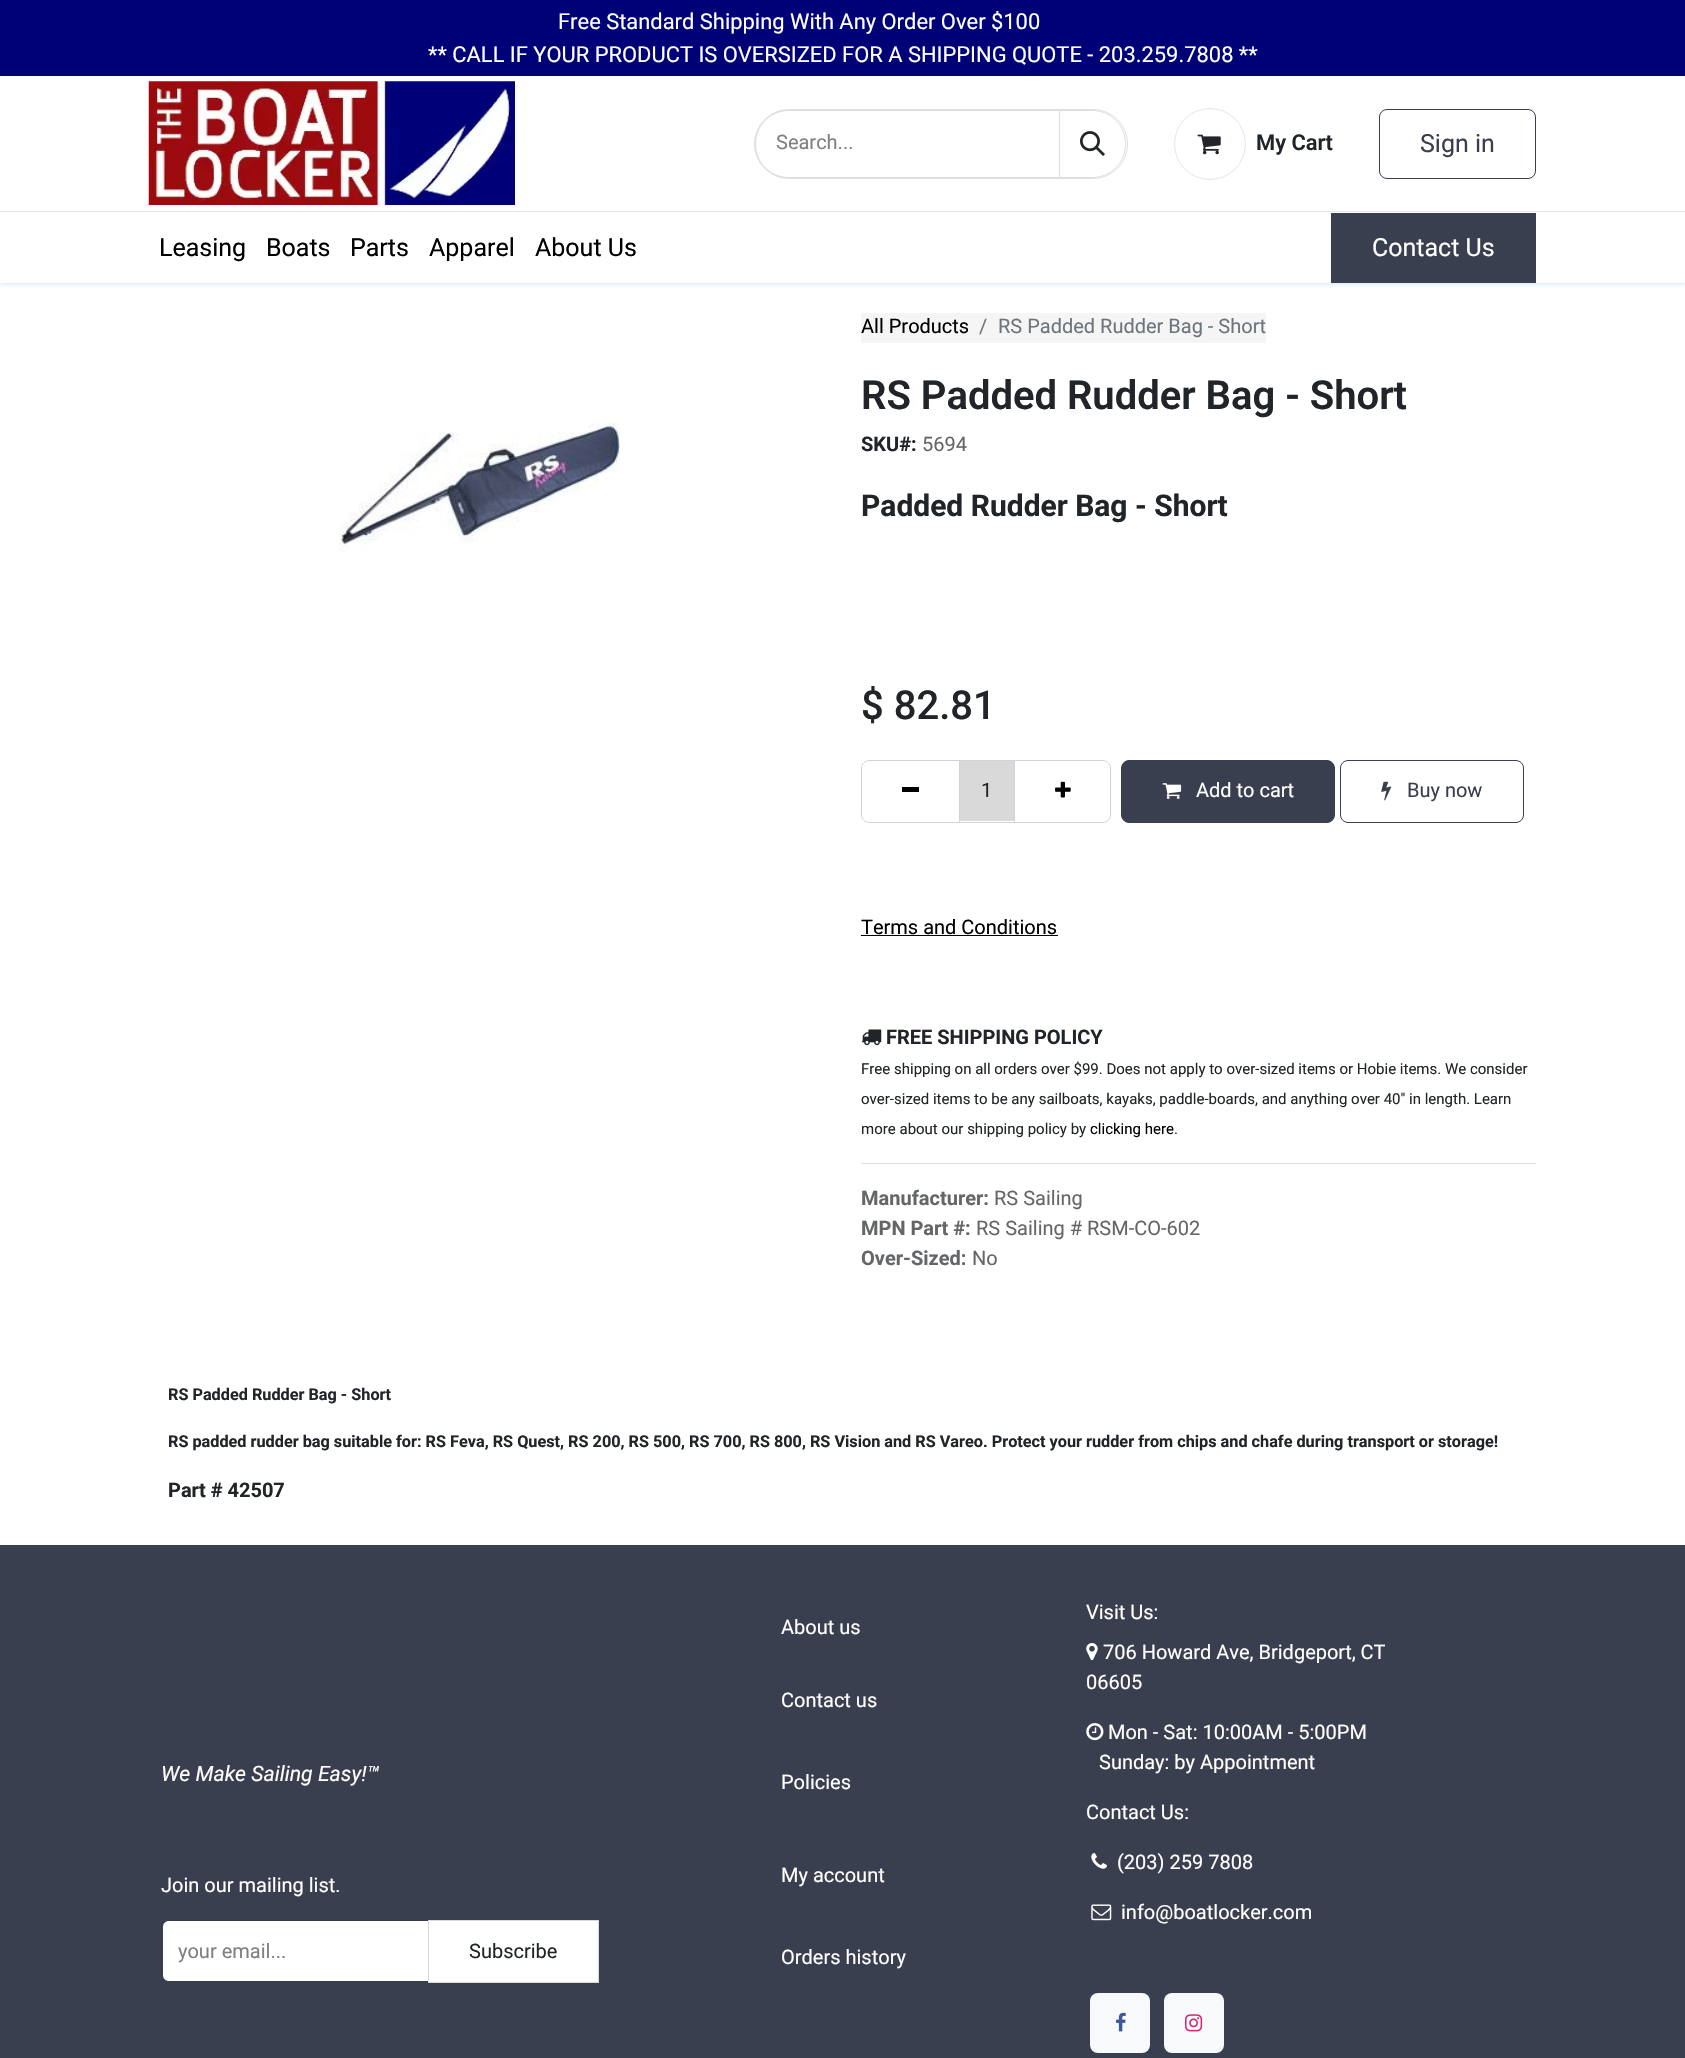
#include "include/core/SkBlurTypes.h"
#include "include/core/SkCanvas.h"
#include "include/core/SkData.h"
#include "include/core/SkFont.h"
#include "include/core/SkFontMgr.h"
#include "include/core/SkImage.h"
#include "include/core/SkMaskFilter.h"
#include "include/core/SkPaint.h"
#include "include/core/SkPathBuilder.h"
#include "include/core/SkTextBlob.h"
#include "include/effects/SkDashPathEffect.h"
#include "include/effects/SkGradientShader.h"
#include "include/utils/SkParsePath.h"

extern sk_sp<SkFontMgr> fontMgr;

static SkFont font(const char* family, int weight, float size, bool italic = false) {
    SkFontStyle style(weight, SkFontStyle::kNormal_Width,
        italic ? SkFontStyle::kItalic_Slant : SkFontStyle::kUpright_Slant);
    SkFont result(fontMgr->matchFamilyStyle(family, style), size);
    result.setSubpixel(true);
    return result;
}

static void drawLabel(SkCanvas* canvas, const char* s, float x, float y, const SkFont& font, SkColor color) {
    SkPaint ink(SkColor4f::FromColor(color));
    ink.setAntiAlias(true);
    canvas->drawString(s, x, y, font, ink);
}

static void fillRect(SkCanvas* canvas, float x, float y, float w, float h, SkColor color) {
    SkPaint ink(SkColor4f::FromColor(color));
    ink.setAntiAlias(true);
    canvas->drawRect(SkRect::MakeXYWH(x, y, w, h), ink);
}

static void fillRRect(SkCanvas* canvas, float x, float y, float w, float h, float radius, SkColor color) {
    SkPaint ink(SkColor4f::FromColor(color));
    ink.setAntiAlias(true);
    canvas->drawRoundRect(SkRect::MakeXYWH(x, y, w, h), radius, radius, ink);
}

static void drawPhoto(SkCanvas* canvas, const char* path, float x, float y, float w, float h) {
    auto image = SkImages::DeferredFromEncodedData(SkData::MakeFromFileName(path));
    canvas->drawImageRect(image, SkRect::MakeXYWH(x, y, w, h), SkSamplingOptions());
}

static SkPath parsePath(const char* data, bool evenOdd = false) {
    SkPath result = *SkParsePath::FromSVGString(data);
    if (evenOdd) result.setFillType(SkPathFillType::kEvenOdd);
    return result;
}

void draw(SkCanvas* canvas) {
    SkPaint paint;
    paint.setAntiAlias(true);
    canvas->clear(0xFFFFFFFF);
    paint.setColor(0xFFCEE7F7);
    paint.setMaskFilter(SkMaskFilter::MakeBlur(kNormal_SkBlurStyle, 2));
    canvas->drawRect(SkRect::MakeXYWH(0, 1, 1685, 283), paint);
    paint.setMaskFilter(nullptr);
    fillRect(canvas, 0, 76, 1685, 207, 0xFFFFFFFF);
    fillRect(canvas, 0, 0, 1685, 76, 0xFF000077);
    SkFont font1 = font("Roboto", 400, 21.9f);
    drawLabel(canvas, "Free Standard Shipping With Any Order Over $100", 558, 29, font1, 0xFFFFFFFF);
    drawLabel(canvas, "** CALL IF YOUR PRODUCT IS OVERSIZED FOR A SHIPPING QUOTE - 203.259.7808 **", 428, 62, font1, 0xFFFFFFFF);
    drawPhoto(canvas, "assets/img1.png", 148, 81, 367, 124);
    paint.setStroke(true);
    paint.setStrokeWidth(1);
    paint.setColor(0xFFDEDEDF);
    canvas->drawRoundRect(SkRect::MakeXYWH(754.5f, 109.5f, 373, 69), 34.5f, 34.5f, paint);
    paint.setColor(0x26212529);
    canvas->drawPath(parsePath("M789 110.5H1059.5V177.5H789C770.5 177.5 755.5 162.5 755.5 144C755.5 125.5 770.5 110.5 789 110.5Z"), paint);
    SkFont font2 = font("Roboto", 400, 20);
    drawLabel(canvas, "Search...", 776, 149, font2, 0xFF7E8082);
    paint.setStroke(false);
    paint.setColor(0xFFFFFFFF);
    canvas->drawPath(parsePath("M1059 110H1092.5C1111 110 1126 125 1126 143.5V144.5C1126 163 1111 178 1092.5 178H1059Z"), paint);
    paint.setStroke(true);
    paint.setColor(0x26212529);
    canvas->drawPath(parsePath("M1059.5 110.5H1092.5C1110.5 110.5 1125.5 125.5 1125.5 143.5V144.5C1125.5 162.5 1110.5 177.5 1092.5 177.5H1059.5Z"), paint);
    drawPhoto(canvas, "assets/img2.png", 1080, 131, 25, 25);
    paint.setColor(0xFFE6E6E6);
    canvas->drawCircle(1210, 144, 35.5f, paint);
    drawPhoto(canvas, "assets/img3.png", 1197, 134, 24, 21);
    SkFont font3 = font("Roboto", 600, 21.9f);
    drawLabel(canvas, "My Cart", 1256, 150, font3, 0xFF212529);
    paint.setColor(0xFF393F4F);
    canvas->drawRoundRect(SkRect::MakeXYWH(1379.5f, 109.5f, 156, 69), 7.5f, 7.5f, paint);
    SkFont font4 = font("Roboto", 400, 25);
    drawLabel(canvas, "Sign in", 1420, 152, font4, 0xFF3A3F4F);
    fillRect(canvas, 0, 211, 1685, 1, 0xFFE6E6E6);
    drawLabel(canvas, "Leasing", 159, 256, font4, 0xFF000000);
    drawLabel(canvas, "Boats", 266, 256, font4, 0xFF000000);
    drawLabel(canvas, "Parts", 350, 256, font4, 0xFF000000);
    drawLabel(canvas, "Apparel", 429, 256, font4, 0xFF000000);
    drawLabel(canvas, "About Us", 535, 256, font4, 0xFF000000);
    fillRect(canvas, 1331, 213, 205, 70, 0xFF3A3F4F);
    drawLabel(canvas, "Contact Us", 1372, 256, font4, 0xFFFFFFFF);
    fillRect(canvas, 861, 313, 405, 30, 0xFFF5F5F5);
    drawLabel(canvas, "All Products", 861, 333, font2, 0xFF000000);
    drawLabel(canvas, "/", 979, 333, font2, 0xFF6C757D);
    drawLabel(canvas, "RS Padded Rudder Bag - Short", 998, 333, font2, 0xFF6C757D);
    drawPhoto(canvas, "assets/img4.png", 339, 417, 282, 136);
    SkFont font5 = font("Roboto", 600, 40);
    drawLabel(canvas, "RS Padded Rudder Bag - Short", 861, 409, font5, 0xFF212529);
    SkFont font6 = font("Roboto", 700, 20);
    drawLabel(canvas, "SKU#:", 861, 451, font6, 0xFF212529);
    drawLabel(canvas, "5694", 922, 451, font2, 0xFF646669);
    SkFont font7 = font("Roboto", 700, 30);
    drawLabel(canvas, "Padded Rudder Bag - Short", 861, 516, font7, 0xFF212529);
    SkFont font8 = font("Roboto", 500, 40);
    drawLabel(canvas, "$ 82.81", 861, 719, font8, 0xFF212529);
    fillRect(canvas, 960, 761, 54, 60, 0xFFD9D9D9);
    paint.setColor(0xFFCED4DA);
    canvas->drawRect(SkRect::MakeXYWH(959.5f, 760.5f, 55, 62), paint);
    canvas->drawPath(parsePath("M869 760.5H959.5V822.5H869C865 822.5 861.5 819 861.5 815V768C861.5 764 865 760.5 869 760.5Z"), paint);
    fillRect(canvas, 902, 787, 17, 5, 0xFF000000);
    drawLabel(canvas, "1", 981, 797, font2, 0xFF212529);
    canvas->drawPath(parsePath("M1014.5 760.5H1103C1107 760.5 1110.5 764 1110.5 768V815C1110.5 819 1107 822.5 1103 822.5H1014.5Z"), paint);
    drawPhoto(canvas, "assets/img5.png", 1055, 781, 16, 17);
    paint.setStroke(false);
    paint.setColor(0xFF3A3F4F);
    canvas->drawRoundRect(SkRect::MakeXYWH(1121.5f, 760.5f, 213, 62), 7.5f, 7.5f, paint);
    paint.setStroke(true);
    canvas->drawRoundRect(SkRect::MakeXYWH(1121.5f, 760.5f, 213, 62), 7.5f, 7.5f, paint);
    drawPhoto(canvas, "assets/img6.png", 1162, 783, 20, 16);
    drawLabel(canvas, "Add to cart", 1196, 797, font2, 0xFFFFFFFF);
    canvas->drawRoundRect(SkRect::MakeXYWH(1340.5f, 760.5f, 183, 62), 7.5f, 7.5f, paint);
    drawPhoto(canvas, "assets/img7.png", 1381, 781, 11, 20);
    drawLabel(canvas, "Buy now", 1407, 797, font2, 0xFF3A3F4F);
    drawLabel(canvas, "Terms and Conditions", 861, 934, font2, 0xFF000000);
    fillRect(canvas, 861, 935, 197, 1, 0xFF000000);
    drawPhoto(canvas, "assets/img8.png", 862, 1029, 20, 17);
    drawLabel(canvas, "FREE SHIPPING POLICY", 886, 1044, font6, 0xFF212529);
    SkFont font9 = font("Roboto", 400, 15);
    drawLabel(canvas, "Free shipping on all orders over $99. Does not apply to over-sized items or Hobie items. We consider", 861, 1074, font9, 0xFF212529);
    drawLabel(canvas, "over-sized items to be any sailboats, kayaks, paddle-boards, and anything over 40\" in length. Learn", 861, 1104, font9, 0xFF212529);
    drawLabel(canvas, "more about our shipping policy by", 861, 1134, font9, 0xFF212529);
    drawLabel(canvas, "clicking here", 1090, 1134, font9, 0xFF000000);
    drawLabel(canvas, ".", 1174, 1134, font9, 0xFF212529);
    fillRect(canvas, 861, 1163, 675, 1, 0xFFDEDEDF);
    drawLabel(canvas, "Manufacturer:", 861, 1205, font6, 0xFF646669);
    drawLabel(canvas, "RS Sailing", 994, 1205, font2, 0xFF646669);
    drawLabel(canvas, "MPN Part #:", 861, 1235, font6, 0xFF646669);
    drawLabel(canvas, "RS Sailing # RSM-CO-602", 976, 1235, font2, 0xFF646669);
    drawLabel(canvas, "Over-Sized:", 861, 1265, font6, 0xFF646669);
    drawLabel(canvas, "No", 972, 1265, font2, 0xFF646669);
    SkFont font10 = font("Roboto", 700, 16.25f);
    drawLabel(canvas, "RS Padded Rudder Bag - Short", 168, 1400, font10, 0xFF212529);
    drawLabel(canvas, "RS padded rudder bag suitable for: RS Feva, RS Quest, RS 200, RS 500, RS 700, RS 800, RS Vision and RS Vareo. Protect your rudder from chips and chafe during transport or storage!", 168, 1447, font10, 0xFF212529);
    drawLabel(canvas, "Part # 42507", 168, 1497, font6, 0xFF212529);
    fillRect(canvas, 0, 1545, 1685, 513, 0xFF393F4F);
    SkFont font11 = font("Roboto", 400, 21.25f, true);
    drawLabel(canvas, "We Make Sailing Easy!™", 161, 1781, font11, 0xFFFFFFFF);
    drawLabel(canvas, "About us", 781, 1634, font2, 0xFFFFFFFF);
    drawLabel(canvas, "Contact us", 781, 1707, font2, 0xFFFFFFFF);
    drawLabel(canvas, "Policies", 781, 1789, font2, 0xFFFFFFFF);
    drawLabel(canvas, "My account", 781, 1882, font2, 0xFFFFFFFF);
    drawLabel(canvas, "Orders history", 781, 1964, font2, 0xFFFFFFFF);
    drawLabel(canvas, "Visit Us:", 1086, 1619, font2, 0xFFFFFFFF);
    drawPhoto(canvas, "assets/img9.png", 1086, 1643, 12, 18);
    drawLabel(canvas, "706 Howard Ave, Bridgeport, CT", 1103, 1659, font2, 0xFFFFFFFF);
    drawLabel(canvas, "06605", 1086, 1689, font2, 0xFFFFFFFF);
    drawPhoto(canvas, "assets/img10.png", 1086, 1723, 18, 18);
    drawLabel(canvas, "Mon - Sat: 10:00AM - 5:00PM", 1108, 1739, font2, 0xFFFFFFFF);
    drawLabel(canvas, "Sunday: by Appointment", 1099, 1769, font2, 0xFFFFFFFF);
    drawLabel(canvas, "Contact Us:", 1086, 1819, font2, 0xFFFFFFFF);
    drawPhoto(canvas, "assets/img11.png", 1091, 1853, 16, 16);
    drawLabel(canvas, "(203) 259 7808", 1117, 1869, font2, 0xFFFFFFFF);
    drawPhoto(canvas, "assets/img12.png", 1091, 1904, 21, 17);
    drawLabel(canvas, "info@boatlocker.com", 1121, 1919, font2, 0xFFFFFFFF);
    fillRRect(canvas, 1090, 1993, 60, 60, 8, 0xFFF8F9FA);
    drawPhoto(canvas, "assets/img13.png", 1116, 2012, 10, 20);
    fillRRect(canvas, 1164, 1993, 60, 60, 8, 0xFFF8F9FA);
    drawPhoto(canvas, "assets/img14.png", 1185, 2014, 18, 18);
    drawLabel(canvas, "Join our mailing list.", 161, 1892, font2, 0xFFFFFFFF);
    paint.setStroke(false);
    paint.setColor(0xFFFFFFFF);
    canvas->drawPath(parsePath("M169 1921H428V1981H169C165.5 1981 163 1978.5 163 1975V1927C163 1923.5 165.5 1921 169 1921Z"), paint);
    paint.setStroke(true);
    paint.setColor(0x26212529);
    canvas->drawPath(parsePath("M169 1920.5H428.5V1982.5H169C165 1982.5 161.5 1979 161.5 1975V1928C161.5 1924 165 1920.5 169 1920.5Z"), paint);
    drawLabel(canvas, "your email...", 178, 1958, font2, 0xFF7E8082);
    paint.setStroke(false);
    paint.setColor(0xFFFFFFFF);
    canvas->drawRect(SkRect::MakeXYWH(428.5f, 1920.5f, 170, 62), paint);
    paint.setStroke(true);
    paint.setColor(0xFFD9D9D9);
    canvas->drawRect(SkRect::MakeXYWH(428.5f, 1920.5f, 170, 62), paint);
    drawLabel(canvas, "Subscribe", 469, 1958, font2, 0xFF212529);
}
